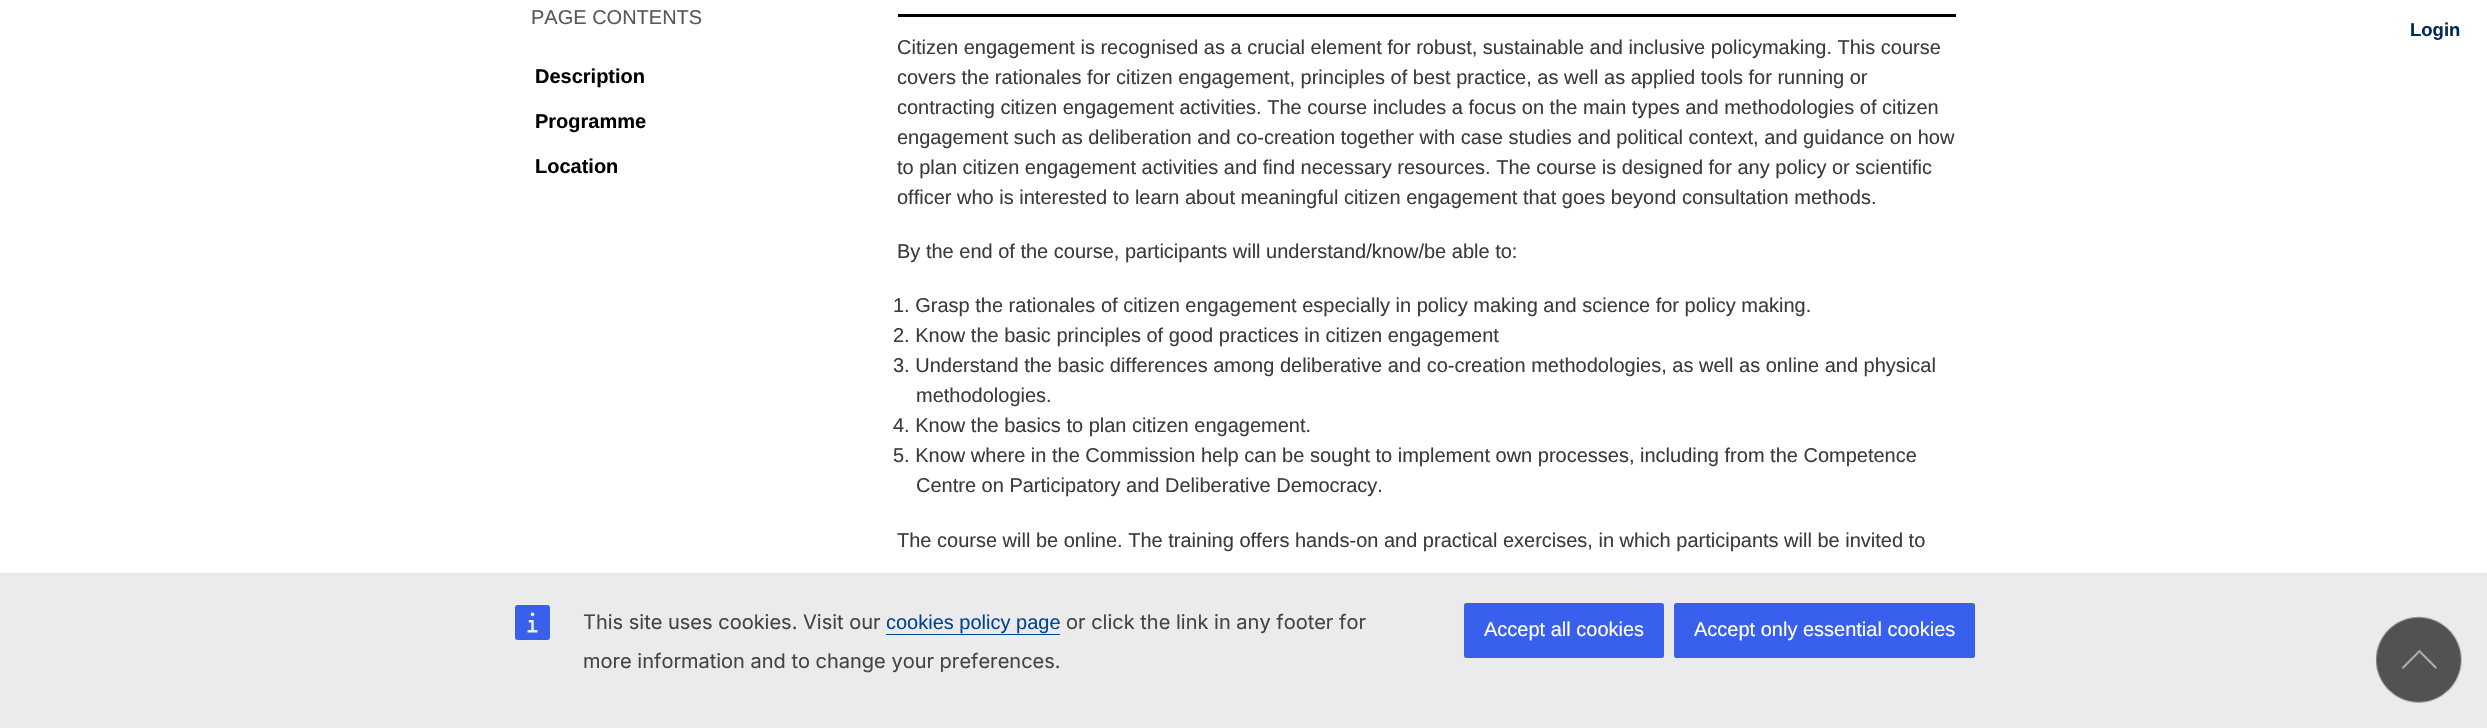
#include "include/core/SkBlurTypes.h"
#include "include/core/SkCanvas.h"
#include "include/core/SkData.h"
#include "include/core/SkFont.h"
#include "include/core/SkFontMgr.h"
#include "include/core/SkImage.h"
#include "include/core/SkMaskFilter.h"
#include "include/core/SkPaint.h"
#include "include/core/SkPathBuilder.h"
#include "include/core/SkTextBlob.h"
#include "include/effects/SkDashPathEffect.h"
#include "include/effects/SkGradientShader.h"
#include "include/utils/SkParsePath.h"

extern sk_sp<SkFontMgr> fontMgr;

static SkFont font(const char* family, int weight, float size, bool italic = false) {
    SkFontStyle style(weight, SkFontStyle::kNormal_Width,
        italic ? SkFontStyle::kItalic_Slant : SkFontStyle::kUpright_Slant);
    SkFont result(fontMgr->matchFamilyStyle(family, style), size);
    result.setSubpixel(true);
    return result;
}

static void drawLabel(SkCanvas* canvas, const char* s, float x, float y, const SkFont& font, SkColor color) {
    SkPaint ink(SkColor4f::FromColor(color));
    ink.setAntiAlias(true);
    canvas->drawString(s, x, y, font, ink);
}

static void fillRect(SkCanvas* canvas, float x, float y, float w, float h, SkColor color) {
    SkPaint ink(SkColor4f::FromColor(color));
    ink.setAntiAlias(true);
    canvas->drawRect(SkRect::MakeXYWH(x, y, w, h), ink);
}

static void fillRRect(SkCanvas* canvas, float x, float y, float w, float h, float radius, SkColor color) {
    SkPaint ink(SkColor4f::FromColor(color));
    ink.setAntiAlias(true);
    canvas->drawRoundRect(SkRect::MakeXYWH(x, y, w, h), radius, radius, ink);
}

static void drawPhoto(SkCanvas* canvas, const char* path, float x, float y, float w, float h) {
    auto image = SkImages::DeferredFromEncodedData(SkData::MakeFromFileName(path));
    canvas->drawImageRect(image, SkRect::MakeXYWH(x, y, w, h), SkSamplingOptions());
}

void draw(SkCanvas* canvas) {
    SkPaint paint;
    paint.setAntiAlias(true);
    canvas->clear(0xFFFFFFFF);
    SkFont font1 = font("Liberation Sans", 400, 20);
    drawLabel(canvas, "PAGE CONTENTS", 531, 24, font1, 0xFF575757);
    SkFont font2 = font("Liberation Sans", 700, 20);
    drawLabel(canvas, "Description", 535, 83, font2, 0xFF000000);
    drawLabel(canvas, "Programme", 535, 128, font2, 0xFF000000);
    drawLabel(canvas, "Location", 535, 173, font2, 0xFF000000);
    fillRect(canvas, 898, 14, 1058, 3, 0xFF000000);
    drawLabel(canvas, "Citizen engagement is recognised as a crucial element for robust, sustainable and inclusive policymaking. This course", 897, 54, font1, 0xFF3B3B3B);
    drawLabel(canvas, "covers the rationales for citizen engagement, principles of best practice, as well as applied tools for running or", 897, 84, font1, 0xFF3B3B3B);
    drawLabel(canvas, "contracting citizen engagement activities. The course includes a focus on the main types and methodologies of citizen", 897, 114, font1, 0xFF3B3B3B);
    drawLabel(canvas, "engagement such as deliberation and co-creation together with case studies and political context, and guidance on how", 897, 144, font1, 0xFF3B3B3B);
    drawLabel(canvas, "to plan citizen engagement activities and find necessary resources. The course is designed for any policy or scientific", 897, 174, font1, 0xFF3B3B3B);
    drawLabel(canvas, "officer who is interested to learn about meaningful citizen engagement that goes beyond consultation methods.", 897, 204, font1, 0xFF3B3B3B);
    drawLabel(canvas, "By the end of the course, participants will understand/know/be able to:", 897, 258, font1, 0xFF3B3B3B);
    drawLabel(canvas, "1. Grasp the rationales of citizen engagement especially in policy making and science for policy making.", 893, 312, font1, 0xFF3B3B3B);
    drawLabel(canvas, "2. Know the basic principles of good practices in citizen engagement", 893, 342, font1, 0xFF3B3B3B);
    drawLabel(canvas, "3. Understand the basic differences among deliberative and co-creation methodologies, as well as online and physical", 893, 372, font1, 0xFF3B3B3B);
    drawLabel(canvas, "methodologies.", 916, 402, font1, 0xFF3B3B3B);
    drawLabel(canvas, "4. Know the basics to plan citizen engagement.", 893, 432, font1, 0xFF3B3B3B);
    drawLabel(canvas, "5. Know where in the Commission help can be sought to implement own processes, including from the Competence", 893, 462, font1, 0xFF3B3B3B);
    drawLabel(canvas, "Centre on Participatory and Deliberative Democracy.", 916, 492, font1, 0xFF3B3B3B);
    drawLabel(canvas, "The course will be online. The training offers hands-on and practical exercises, in which participants will be invited to", 897, 547, font1, 0xFF3B3B3B);
    SkFont font3 = font("Liberation Sans", 700, 18.5f);
    drawLabel(canvas, "Login", 2410, 36, font3, 0xFF012B58);
    fillRect(canvas, 0, 573, 2487, 155, 0xFFEBEBEB);
    drawPhoto(canvas, "assets/img1.png", 515, 605, 35, 35);
    SkFont font4 = font("Inter", 400, 20);
    drawLabel(canvas, "This site uses cookies. Visit our", 583, 629, font4, 0xFF444444);
    drawLabel(canvas, "cookies policy page", 886, 629, font1, 0xFF004494);
    fillRect(canvas, 886, 634, 174, 1, 0xFF004494);
    drawLabel(canvas, "or click the link in any footer for", 1066, 629, font4, 0xFF444444);
    drawLabel(canvas, "more information and to change your preferences.", 583, 668, font4, 0xFF444444);
    fillRRect(canvas, 1464, 603, 200, 55, 2.5f, 0xFF3860ED);
    drawLabel(canvas, "Accept all cookies", 1484, 636, font1, 0xFFFFFFFF);
    fillRRect(canvas, 1674, 603, 301, 55, 2.5f, 0xFF3860ED);
    drawLabel(canvas, "Accept only essential cookies", 1694, 636, font1, 0xFFFFFFFF);
    drawPhoto(canvas, "assets/img2.png", 2375, 616, 87, 87);
}
